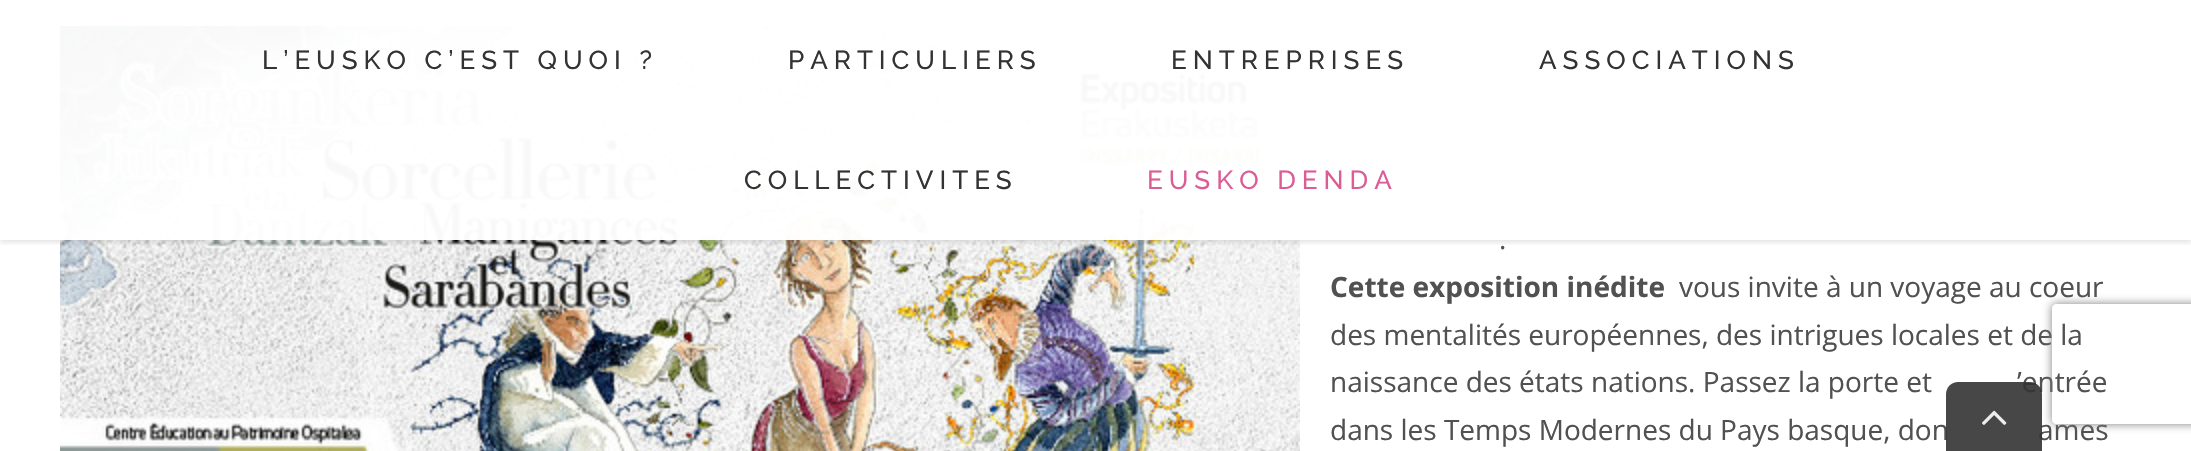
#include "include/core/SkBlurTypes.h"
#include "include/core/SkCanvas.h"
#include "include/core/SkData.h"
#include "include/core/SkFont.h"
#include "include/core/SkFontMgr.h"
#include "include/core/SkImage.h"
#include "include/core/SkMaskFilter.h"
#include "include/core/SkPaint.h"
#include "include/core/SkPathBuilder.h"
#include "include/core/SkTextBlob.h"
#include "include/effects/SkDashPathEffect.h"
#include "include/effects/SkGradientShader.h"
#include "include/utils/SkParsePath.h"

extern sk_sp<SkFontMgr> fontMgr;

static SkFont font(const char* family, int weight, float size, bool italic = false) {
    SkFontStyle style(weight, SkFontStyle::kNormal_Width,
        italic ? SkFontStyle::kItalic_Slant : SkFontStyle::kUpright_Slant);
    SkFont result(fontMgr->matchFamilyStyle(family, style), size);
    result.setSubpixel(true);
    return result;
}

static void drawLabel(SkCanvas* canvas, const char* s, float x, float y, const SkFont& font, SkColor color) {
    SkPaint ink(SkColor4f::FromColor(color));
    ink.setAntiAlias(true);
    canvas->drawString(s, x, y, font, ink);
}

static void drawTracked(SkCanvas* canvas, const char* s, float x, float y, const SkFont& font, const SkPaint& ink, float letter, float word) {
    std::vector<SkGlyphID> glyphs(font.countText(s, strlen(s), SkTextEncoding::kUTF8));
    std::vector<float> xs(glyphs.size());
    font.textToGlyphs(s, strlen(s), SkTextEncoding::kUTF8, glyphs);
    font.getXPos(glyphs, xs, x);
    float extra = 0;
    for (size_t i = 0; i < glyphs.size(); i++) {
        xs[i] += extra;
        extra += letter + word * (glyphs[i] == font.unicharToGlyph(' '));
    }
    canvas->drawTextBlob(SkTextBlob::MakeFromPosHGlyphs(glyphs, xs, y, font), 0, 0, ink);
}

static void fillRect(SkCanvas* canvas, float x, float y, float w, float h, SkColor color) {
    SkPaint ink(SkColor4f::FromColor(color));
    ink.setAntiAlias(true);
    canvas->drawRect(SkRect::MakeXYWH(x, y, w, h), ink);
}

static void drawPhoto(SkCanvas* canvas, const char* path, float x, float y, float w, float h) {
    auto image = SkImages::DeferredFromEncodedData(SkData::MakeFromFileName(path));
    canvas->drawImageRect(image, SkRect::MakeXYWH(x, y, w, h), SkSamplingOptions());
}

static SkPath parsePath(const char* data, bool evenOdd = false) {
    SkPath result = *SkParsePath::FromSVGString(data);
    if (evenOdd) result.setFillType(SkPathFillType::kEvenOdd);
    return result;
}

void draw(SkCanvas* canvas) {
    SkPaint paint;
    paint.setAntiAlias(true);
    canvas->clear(0xFFFFFFFF);
    drawPhoto(canvas, "assets/img1.png", 60, 26, 1240, 425);
    canvas->save();
    canvas->clipRect(SkRect::MakeXYWH(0, 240, 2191, 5));
    paint.setColor(0x1F000000);
    paint.setMaskFilter(SkMaskFilter::MakeBlur(kNormal_SkBlurStyle, 3));
    canvas->drawRect(SkRect::MakeXYWH(0, 2, 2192, 240), paint);
    paint.setMaskFilter(nullptr);
    canvas->restore();
    fillRect(canvas, 60, 26, 1240, 214, 0xF7FFFFFF);
    SkFont font1 = font("Raleway", 500, 26);
    paint.setColor(0xFF333333);
    drawTracked(canvas, "L’EUSKO C’EST QUOI ?", 262, 69, font1, paint, 6, 0);
    drawTracked(canvas, "PARTICULIERS", 788, 69, font1, paint, 6, 0);
    drawTracked(canvas, "ENTREPRISES", 1171, 69, font1, paint, 6, 0);
    drawTracked(canvas, "ASSOCIATIONS", 1539, 69, font1, paint, 6, 0);
    drawTracked(canvas, "COLLECTIVITES", 744, 189, font1, paint, 6, 0);
    paint.setColor(0xFFDC5D95);
    drawTracked(canvas, "EUSKO DENDA", 1147, 189, font1, paint, 6, 0);
    SkFont font2 = font("Open Sans", 400, 28);
    drawLabel(canvas, ".", 1499, 249, font2, 0xFF515151);
    SkFont font3 = font("Open Sans", 700, 28);
    drawLabel(canvas, "Cette exposition inédite", 1330, 297, font3, 0xFF515151);
    drawLabel(canvas, "vous invite à un voyage au coeur", 1679, 297, font2, 0xFF515151);
    drawLabel(canvas, "des mentalités européennes, des intrigues locales et de la", 1330, 345, font2, 0xFF515151);
    drawLabel(canvas, "naissance des états nations. Passez la porte et", 1330, 392, font2, 0xFF515151);
    drawLabel(canvas, "’entrée", 2017, 392, font2, 0xFF515151);
    drawLabel(canvas, "dans les Temps Modernes du Pays basque, don", 1330, 440, font2, 0xFF515151);
    drawLabel(canvas, "ames", 2038, 440, font2, 0xFF515151);
    canvas->save();
    canvas->clipPath(parsePath("M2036 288H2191V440H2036ZM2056 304H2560C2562 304 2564 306 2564 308V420C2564 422 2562 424 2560 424H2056C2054 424 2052 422 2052 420V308C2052 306 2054 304 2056 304Z", true), true);
    paint.setColor(0xFF808080);
    paint.setMaskFilter(SkMaskFilter::MakeBlur(kNormal_SkBlurStyle, 5));
    canvas->drawRoundRect(SkRect::MakeXYWH(2052, 304, 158, 120), 4, 4, paint);
    paint.setMaskFilter(nullptr);
    canvas->restore();
    paint.setColor(0xE6333333);
    canvas->drawPath(parsePath("M1958 382H2030C2036.5 382 2042 387.5 2042 394V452H1946V394C1946 387.5 1951.5 382 1958 382Z"), paint);
    drawPhoto(canvas, "assets/img2.png", 1982, 410, 25, 15);
}
